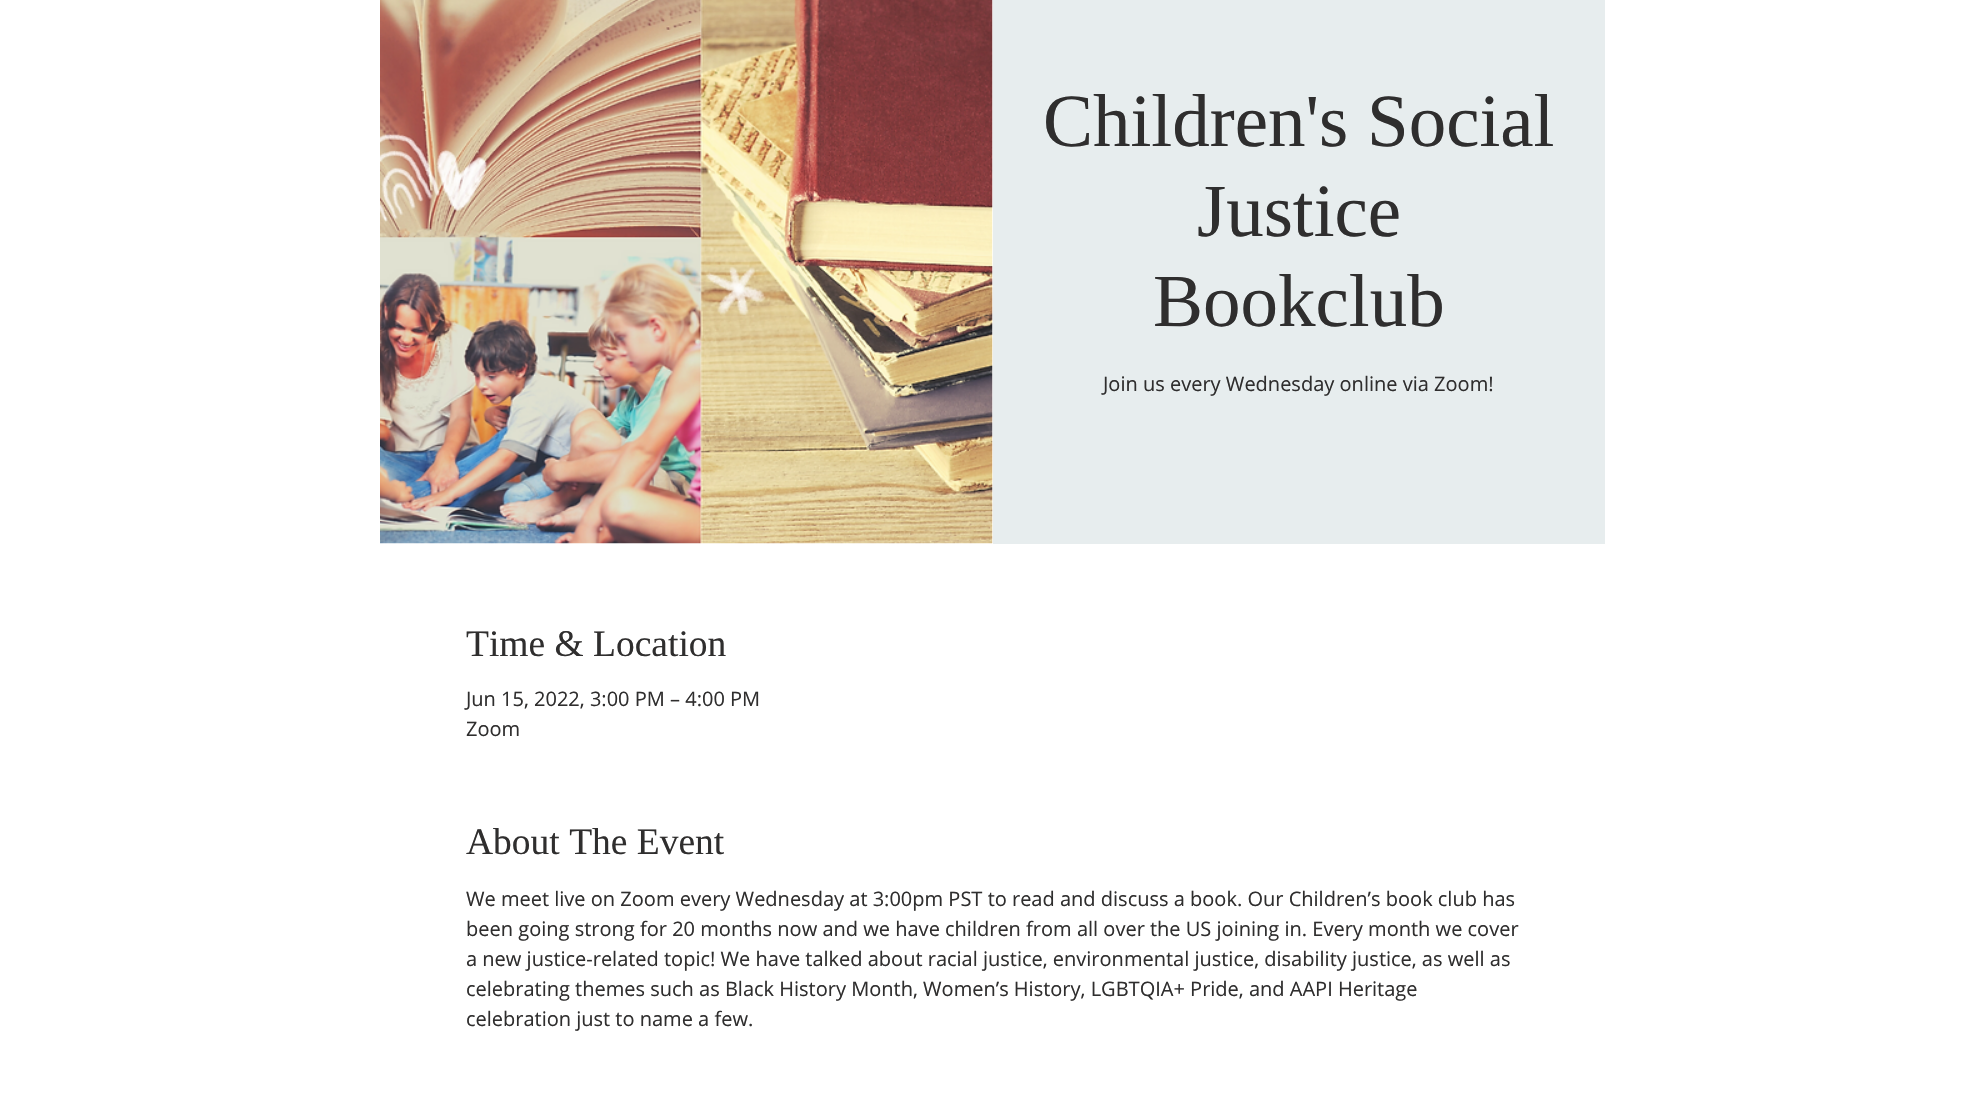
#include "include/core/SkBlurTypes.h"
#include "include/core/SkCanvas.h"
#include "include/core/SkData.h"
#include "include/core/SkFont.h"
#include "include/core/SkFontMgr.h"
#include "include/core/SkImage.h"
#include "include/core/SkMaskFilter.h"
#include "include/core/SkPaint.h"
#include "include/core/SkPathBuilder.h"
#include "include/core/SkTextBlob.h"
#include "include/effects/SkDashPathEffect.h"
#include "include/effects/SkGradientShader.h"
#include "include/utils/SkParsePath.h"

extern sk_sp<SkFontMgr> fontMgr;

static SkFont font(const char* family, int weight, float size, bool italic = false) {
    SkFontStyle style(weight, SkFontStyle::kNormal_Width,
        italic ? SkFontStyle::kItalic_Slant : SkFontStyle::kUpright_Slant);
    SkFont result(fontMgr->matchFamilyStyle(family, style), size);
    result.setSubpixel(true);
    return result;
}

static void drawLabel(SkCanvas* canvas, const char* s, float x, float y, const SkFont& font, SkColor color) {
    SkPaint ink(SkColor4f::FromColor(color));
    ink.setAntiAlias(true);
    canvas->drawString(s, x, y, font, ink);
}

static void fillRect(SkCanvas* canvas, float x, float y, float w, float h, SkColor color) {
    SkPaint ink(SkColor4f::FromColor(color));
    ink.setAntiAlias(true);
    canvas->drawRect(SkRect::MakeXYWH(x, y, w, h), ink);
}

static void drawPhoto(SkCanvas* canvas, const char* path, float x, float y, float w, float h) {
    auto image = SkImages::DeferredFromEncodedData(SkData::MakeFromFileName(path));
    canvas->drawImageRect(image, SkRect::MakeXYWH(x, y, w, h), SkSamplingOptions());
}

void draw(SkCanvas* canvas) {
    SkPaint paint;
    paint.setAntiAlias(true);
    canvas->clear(0xFFFFFFFF);
    drawPhoto(canvas, "assets/img1.png", 380, 0, 613, 544);
    fillRect(canvas, 993, 0, 612, 544, 0xFFE7EDEE);
    SkFont font1 = font("Liberation Serif", 400, 75);
    drawLabel(canvas, "Children's Social", 1043, 146, font1, 0xFF2F2E2E);
    drawLabel(canvas, "Justice", 1197, 236, font1, 0xFF2F2E2E);
    drawLabel(canvas, "Bookclub", 1153, 326, font1, 0xFF2F2E2E);
    SkFont font2 = font("Open Sans", 400, 20);
    drawLabel(canvas, "Join us every Wednesday online via Zoom!", 1103, 391, font2, 0xFF2F2E2E);
    SkFont font3 = font("Liberation Serif", 400, 37.5f);
    drawLabel(canvas, "Time & Location", 466, 656, font3, 0xFF2F2E2E);
    drawLabel(canvas, "Jun 15, 2022, 3:00 PM – 4:00 PM", 466, 706, font2, 0xFF2F2E2E);
    drawLabel(canvas, "Zoom", 466, 736, font2, 0xFF2F2E2E);
    drawLabel(canvas, "About The Event", 466, 854, font3, 0xFF2F2E2E);
    drawLabel(canvas, "We meet live on Zoom every Wednesday at 3:00pm PST to read and discuss a book. Our Children’s book club has", 466, 906, font2, 0xFF2F2E2E);
    drawLabel(canvas, "been going strong for 20 months now and we have children from all over the US joining in. Every month we cover", 466, 936, font2, 0xFF2F2E2E);
    drawLabel(canvas, "a new justice-related topic! We have talked about racial justice, environmental justice, disability justice, as well as", 466, 966, font2, 0xFF2F2E2E);
    drawLabel(canvas, "celebrating themes such as Black History Month, Women’s History, LGBTQIA+ Pride, and AAPI Heritage", 466, 996, font2, 0xFF2F2E2E);
    drawLabel(canvas, "celebration just to name a few.", 466, 1026, font2, 0xFF2F2E2E);
}
